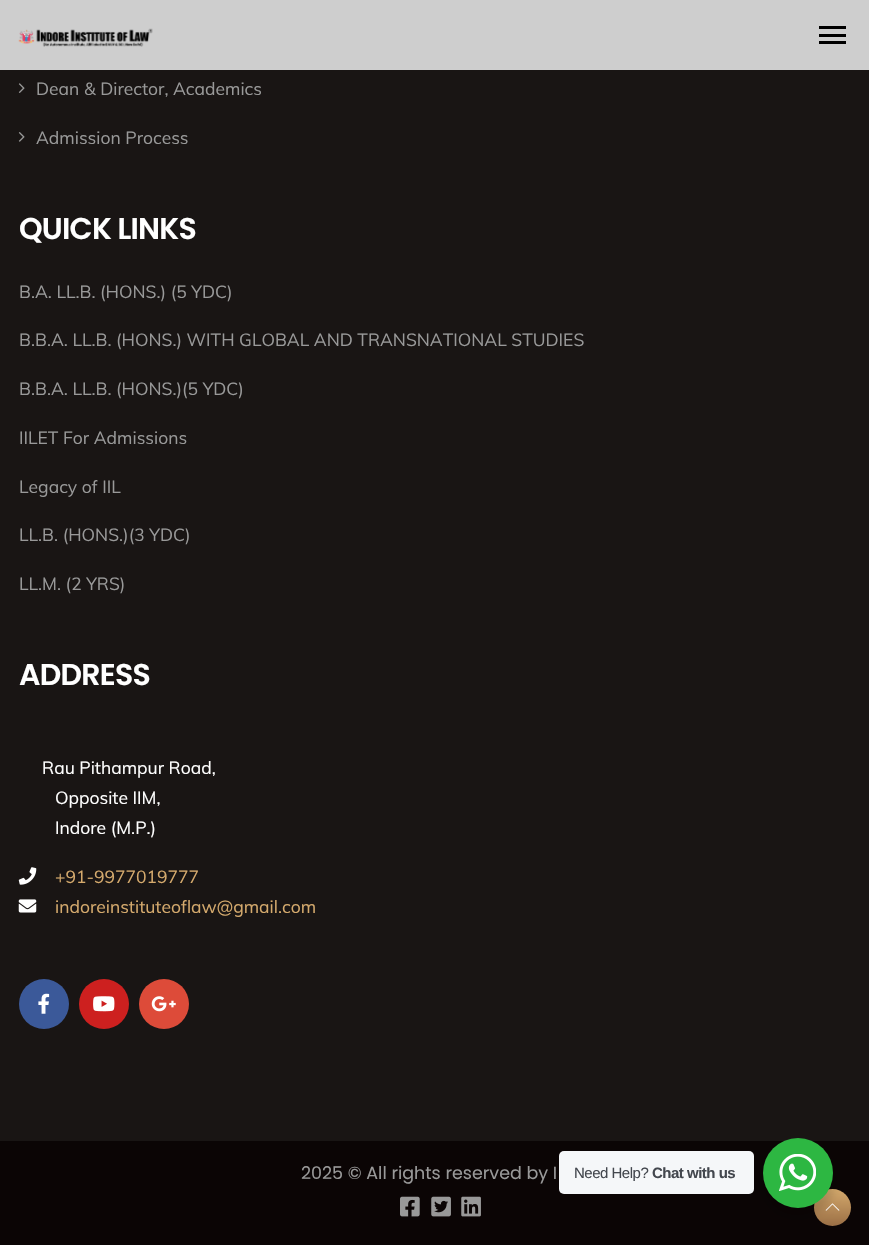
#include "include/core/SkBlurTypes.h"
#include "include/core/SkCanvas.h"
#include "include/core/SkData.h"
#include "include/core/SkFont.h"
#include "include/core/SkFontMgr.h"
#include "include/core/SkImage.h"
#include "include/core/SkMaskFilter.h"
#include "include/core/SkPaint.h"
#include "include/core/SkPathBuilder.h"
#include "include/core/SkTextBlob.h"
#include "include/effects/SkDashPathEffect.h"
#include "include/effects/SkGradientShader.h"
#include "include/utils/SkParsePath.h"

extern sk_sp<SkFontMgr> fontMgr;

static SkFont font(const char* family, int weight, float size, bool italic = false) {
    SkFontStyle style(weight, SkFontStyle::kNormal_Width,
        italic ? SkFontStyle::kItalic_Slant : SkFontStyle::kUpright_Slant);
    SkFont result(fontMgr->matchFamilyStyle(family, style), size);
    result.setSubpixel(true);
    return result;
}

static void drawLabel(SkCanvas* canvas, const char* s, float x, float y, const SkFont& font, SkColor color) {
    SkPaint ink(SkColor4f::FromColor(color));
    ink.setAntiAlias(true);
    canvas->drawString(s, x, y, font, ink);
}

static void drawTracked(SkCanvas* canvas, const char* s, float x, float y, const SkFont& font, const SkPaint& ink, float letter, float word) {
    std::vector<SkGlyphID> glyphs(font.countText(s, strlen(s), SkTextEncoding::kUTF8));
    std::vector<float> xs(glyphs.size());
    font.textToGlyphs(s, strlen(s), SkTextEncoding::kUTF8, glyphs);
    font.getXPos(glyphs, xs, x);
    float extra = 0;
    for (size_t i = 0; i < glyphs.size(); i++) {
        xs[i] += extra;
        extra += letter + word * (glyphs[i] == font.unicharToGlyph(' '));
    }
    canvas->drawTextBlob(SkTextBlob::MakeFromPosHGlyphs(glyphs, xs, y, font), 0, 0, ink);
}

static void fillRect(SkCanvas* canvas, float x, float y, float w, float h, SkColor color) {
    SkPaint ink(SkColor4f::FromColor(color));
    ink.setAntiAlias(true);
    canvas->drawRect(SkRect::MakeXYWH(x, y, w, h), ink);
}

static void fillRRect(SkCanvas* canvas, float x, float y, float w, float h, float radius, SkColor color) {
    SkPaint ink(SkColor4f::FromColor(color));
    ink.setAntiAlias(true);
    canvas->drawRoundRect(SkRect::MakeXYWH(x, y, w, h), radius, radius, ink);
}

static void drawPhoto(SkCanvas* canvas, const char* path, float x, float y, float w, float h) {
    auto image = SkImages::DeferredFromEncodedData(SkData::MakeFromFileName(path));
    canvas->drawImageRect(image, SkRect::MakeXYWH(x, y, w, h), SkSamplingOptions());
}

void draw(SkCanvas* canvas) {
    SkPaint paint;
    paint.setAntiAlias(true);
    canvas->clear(0xFF191514);
    fillRect(canvas, 0, 0, 869, 70, 0xFFCECECE);
    drawPhoto(canvas, "assets/img1.png", 18, 28, 135, 19);
    fillRect(canvas, 819, 26, 27, 3, 0xFF000000);
    fillRect(canvas, 819, 34, 27, 3, 0xFF000000);
    fillRect(canvas, 819, 41, 27, 3, 0xFF000000);
    drawPhoto(canvas, "assets/img2.png", 18, 83, 7, 10);
    SkFont font1 = font("Muli", 400, 17.5f);
    drawLabel(canvas, "Dean & Director, Academics", 36, 95, font1, 0xFF999999);
    drawPhoto(canvas, "assets/img3.png", 18, 132, 7, 10);
    drawLabel(canvas, "Admission Process", 36, 144, font1, 0xFF999999);
    SkFont font2 = font("Poppins", 600, 30);
    paint.setColor(0xFFFFFFFF);
    drawTracked(canvas, "QUICK LINKS", 19, 239, font2, paint, -0.75f, 0);
    drawLabel(canvas, "B.A. LL.B. (HONS.) (5 YDC)", 19, 298, font1, 0xFF999999);
    drawLabel(canvas, "B.B.A. LL.B. (HONS.) WITH GLOBAL AND TRANSNATIONAL STUDIES", 19, 346, font1, 0xFF999999);
    drawLabel(canvas, "B.B.A. LL.B. (HONS.)(5 YDC)", 19, 395, font1, 0xFF999999);
    drawLabel(canvas, "IILET For Admissions", 19, 444, font1, 0xFF999999);
    drawLabel(canvas, "Legacy of IIL", 19, 493, font1, 0xFF999999);
    drawLabel(canvas, "LL.B. (HONS.)(3 YDC)", 19, 541, font1, 0xFF999999);
    drawLabel(canvas, "LL.M. (2 YRS)", 19, 590, font1, 0xFF999999);
    drawTracked(canvas, "ADDRESS", 19, 685, font2, paint, -0.75f, 0);
    drawLabel(canvas, "Rau Pithampur Road,", 42, 774, font1, 0xFFFFFFFF);
    drawLabel(canvas, "Opposite IIM,", 55, 804, font1, 0xFFFFFFFF);
    drawLabel(canvas, "Indore (M.P.)", 55, 834, font1, 0xFFFFFFFF);
    drawPhoto(canvas, "assets/img4.png", 18, 867, 19, 18);
    drawLabel(canvas, "+91-9977019777", 55, 883, font1, 0xFFD5AA6D);
    drawPhoto(canvas, "assets/img5.png", 18, 899, 19, 14);
    drawLabel(canvas, "indoreinstituteoflaw@gmail.com", 55, 913, font1, 0xFFD5AA6D);
    paint.setColor(0xFF3B5999);
    canvas->drawCircle(44, 1004, 25, paint);
    drawPhoto(canvas, "assets/img6.png", 38, 993, 12, 21);
    paint.setColor(0xFFCD201F);
    canvas->drawCircle(104, 1004, 25, paint);
    drawPhoto(canvas, "assets/img7.png", 93, 996, 22, 16);
    paint.setColor(0xFFDD4B39);
    canvas->drawCircle(164, 1004, 25, paint);
    drawPhoto(canvas, "assets/img8.png", 151, 996, 25, 16);
    fillRect(canvas, 0, 1141, 869, 104, 0xFF0B0505);
    SkFont font3 = font("Poppins", 400, 17.5f);
    drawLabel(canvas, "2025 © All rights reserved by I", 301, 1179, font3, 0xFF999999);
    drawPhoto(canvas, "assets/img9.png", 400, 1196, 20, 21);
    drawPhoto(canvas, "assets/img10.png", 431, 1196, 20, 21);
    drawPhoto(canvas, "assets/img11.png", 461, 1196, 20, 21);
    {
        const SkColor colors[] = {0xFFD5AA6D, 0xFF9B6F45};
        const float stops[] = {0, 1};
        const SkPoint ends[] = {{833, 1189}, {833, 1226}};
        paint.setShader(SkGradientShader::MakeLinear(ends, colors, stops, 2, SkTileMode::kClamp));
        paint.setAlpha(255);
    }
    canvas->drawCircle(832.5f, 1207.5f, 18.5f, paint);
    drawPhoto(canvas, "assets/img12.png", 825, 1203, 15, 8);
    paint.setShader(nullptr);
    paint.setColor(0x24000000);
    paint.setMaskFilter(SkMaskFilter::MakeBlur(kNormal_SkBlurStyle, 5));
    canvas->drawRoundRect(SkRect::MakeXYWH(760, 1143, 75, 75), 37.5f, 37.5f, paint);
    paint.setMaskFilter(nullptr);
    fillRRect(canvas, 559, 1151, 195, 43, 5, 0xFFF5F7F9);
    SkFont font4 = font("Liberation Sans", 400, 15);
    paint.setColor(0xFF43474E);
    drawTracked(canvas, "Need Help?", 574, 1178, font4, paint, -0.5f, 0);
    SkFont font5 = font("Liberation Sans", 700, 15);
    drawTracked(canvas, "Chat with us", 652, 1178, font5, paint, -0.5f, 0);
    paint.setColor(0xFF2DB742);
    canvas->drawCircle(798, 1173, 35, paint);
    drawPhoto(canvas, "assets/img13.png", 779, 1154, 37, 37);
}
